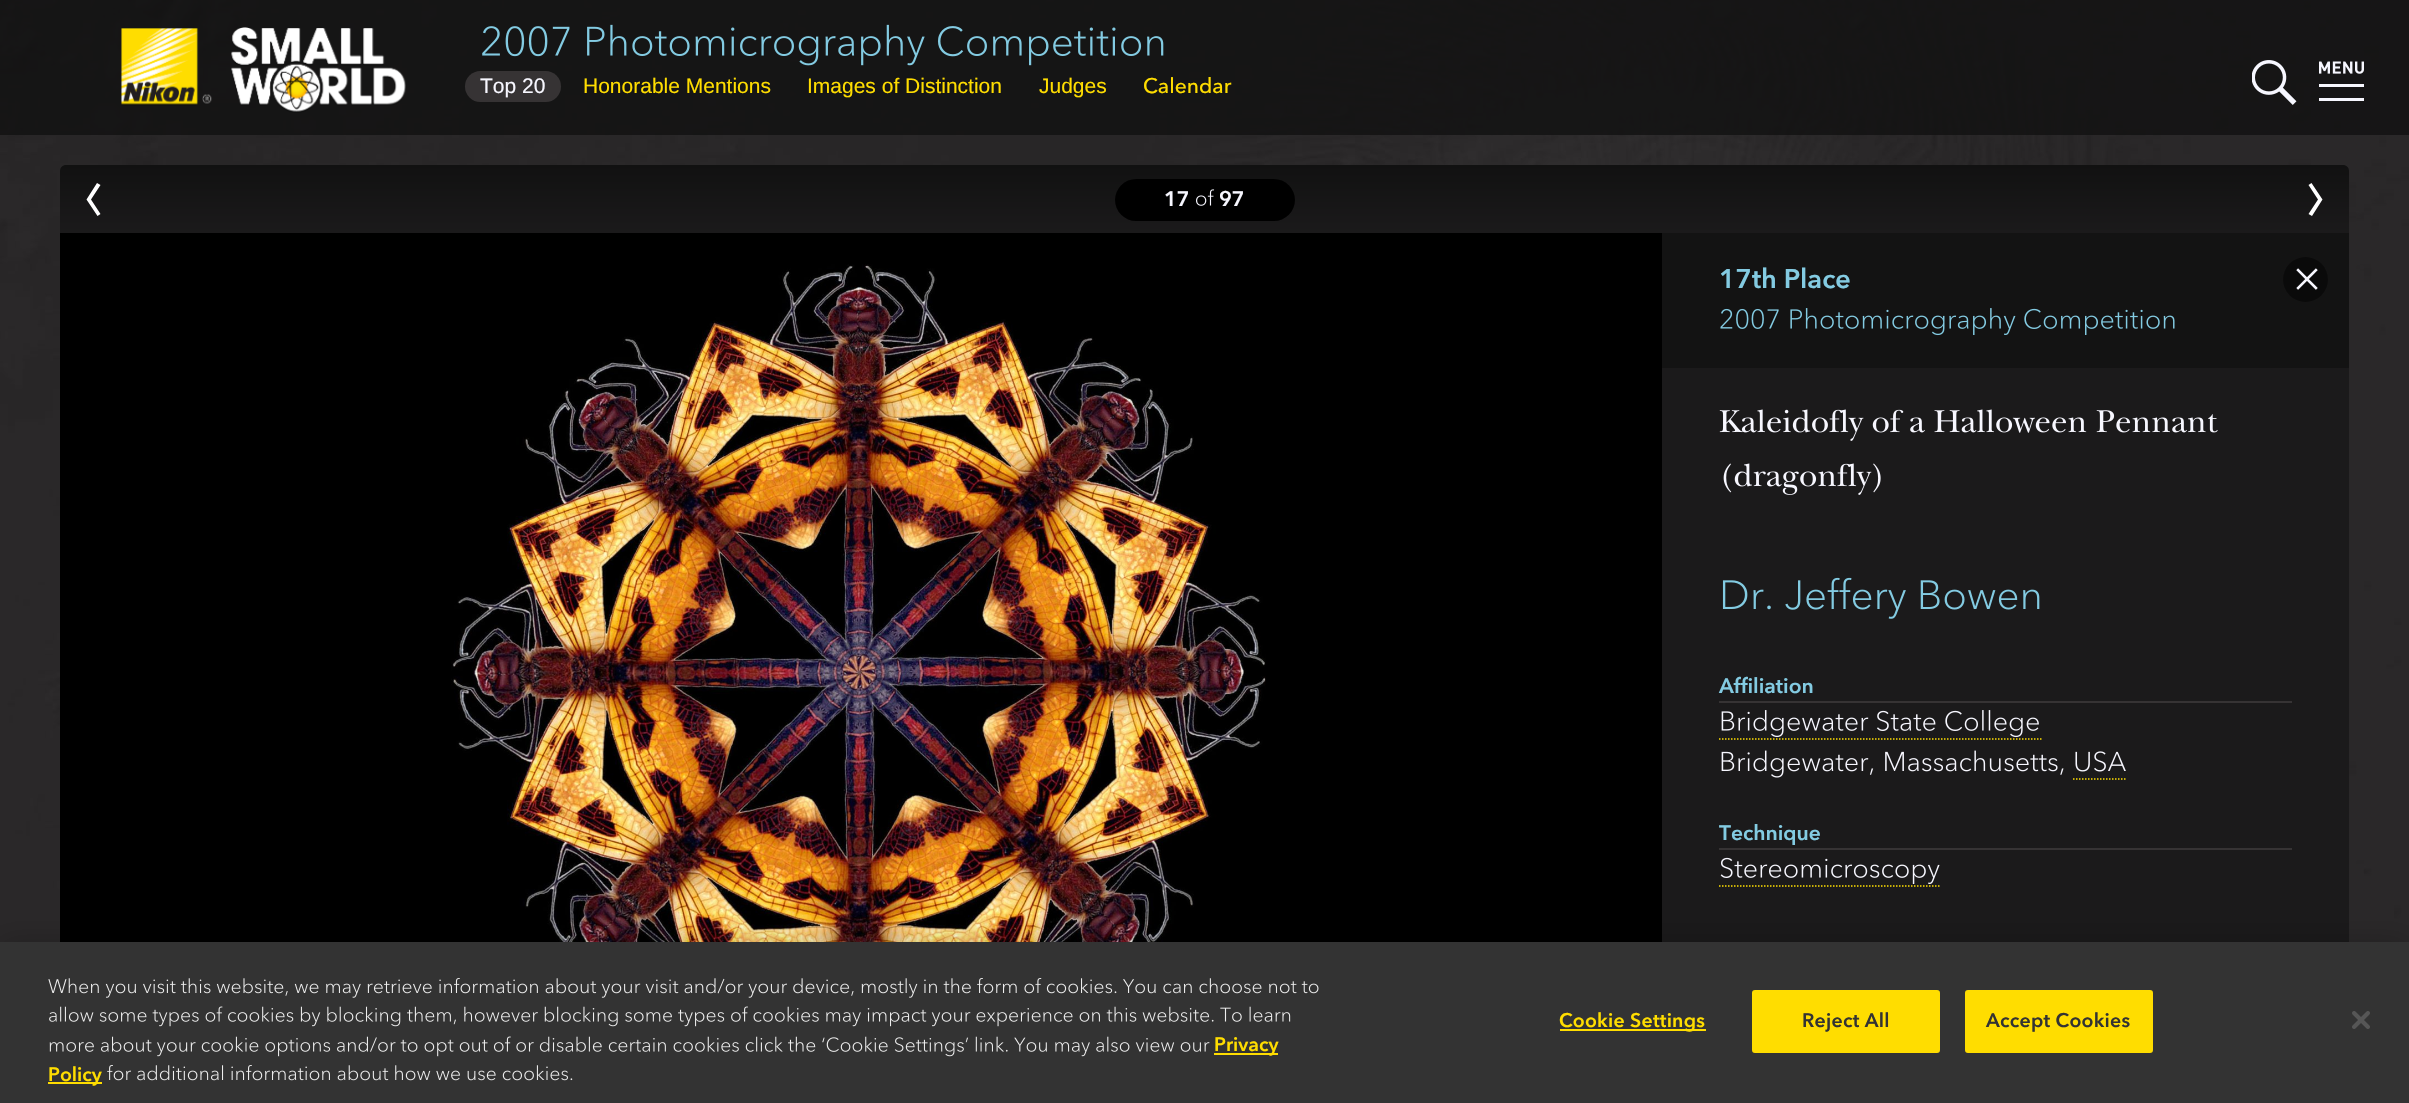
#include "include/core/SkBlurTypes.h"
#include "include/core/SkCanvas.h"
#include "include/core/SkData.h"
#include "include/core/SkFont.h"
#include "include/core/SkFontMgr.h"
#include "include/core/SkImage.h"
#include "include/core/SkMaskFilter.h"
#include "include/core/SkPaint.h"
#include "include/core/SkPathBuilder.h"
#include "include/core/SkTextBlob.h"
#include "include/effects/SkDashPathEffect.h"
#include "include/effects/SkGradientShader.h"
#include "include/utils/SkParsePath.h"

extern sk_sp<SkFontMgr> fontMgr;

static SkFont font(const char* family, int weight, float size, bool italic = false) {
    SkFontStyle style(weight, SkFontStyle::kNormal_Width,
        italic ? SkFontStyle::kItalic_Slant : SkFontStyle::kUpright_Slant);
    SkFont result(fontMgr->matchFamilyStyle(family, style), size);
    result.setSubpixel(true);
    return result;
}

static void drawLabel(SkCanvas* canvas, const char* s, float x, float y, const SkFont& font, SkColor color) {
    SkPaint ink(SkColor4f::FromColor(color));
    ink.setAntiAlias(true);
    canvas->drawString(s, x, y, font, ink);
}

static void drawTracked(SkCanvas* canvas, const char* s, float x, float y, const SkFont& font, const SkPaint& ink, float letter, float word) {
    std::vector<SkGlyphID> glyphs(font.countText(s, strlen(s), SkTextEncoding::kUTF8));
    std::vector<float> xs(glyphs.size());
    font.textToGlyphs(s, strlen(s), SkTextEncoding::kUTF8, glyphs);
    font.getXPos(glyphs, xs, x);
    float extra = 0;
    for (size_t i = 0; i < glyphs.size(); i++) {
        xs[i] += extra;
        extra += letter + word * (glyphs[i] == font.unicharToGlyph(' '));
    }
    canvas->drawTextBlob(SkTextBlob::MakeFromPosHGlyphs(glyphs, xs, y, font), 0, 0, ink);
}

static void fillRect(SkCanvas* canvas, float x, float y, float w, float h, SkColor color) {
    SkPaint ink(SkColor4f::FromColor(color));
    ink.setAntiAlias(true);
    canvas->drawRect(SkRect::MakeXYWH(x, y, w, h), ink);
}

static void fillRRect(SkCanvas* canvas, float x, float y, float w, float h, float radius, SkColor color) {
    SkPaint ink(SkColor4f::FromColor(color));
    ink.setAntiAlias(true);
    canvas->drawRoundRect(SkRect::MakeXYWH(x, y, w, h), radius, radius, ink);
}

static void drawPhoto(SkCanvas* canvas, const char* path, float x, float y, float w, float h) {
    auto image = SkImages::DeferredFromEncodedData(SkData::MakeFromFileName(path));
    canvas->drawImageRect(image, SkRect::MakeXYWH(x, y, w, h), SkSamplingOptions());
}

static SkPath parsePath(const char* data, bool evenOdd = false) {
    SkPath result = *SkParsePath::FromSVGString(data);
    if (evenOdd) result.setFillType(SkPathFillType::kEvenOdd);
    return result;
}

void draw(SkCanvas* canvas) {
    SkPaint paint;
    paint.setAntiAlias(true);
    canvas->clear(0xFFFFFFFF);
    drawPhoto(canvas, "assets/img1.png", 0, 0, 2409, 942);
    fillRect(canvas, 0, 0, 2409, 135, 0xCC101010);
    drawPhoto(canvas, "assets/img2.png", 121, 27, 285, 86);
    drawPhoto(canvas, "assets/img3.png", 482, 24, 682, 42);
    drawPhoto(canvas, "assets/img4.png", 2252, 60, 45, 45);
    drawPhoto(canvas, "assets/img5.png", 2319, 61, 45, 40);
    fillRRect(canvas, 465, 71, 96, 31, 15.5f, 0xFF363334);
    SkFont font1 = font("Liberation Sans", 400, 21);
    drawLabel(canvas, "Top 20", 480, 93, font1, 0xFFF7F7FF);
    drawLabel(canvas, "Honorable Mentions", 583, 93, font1, 0xFFFFDD00);
    drawLabel(canvas, "Images of Distinction", 807, 93, font1, 0xFFFFDD00);
    drawLabel(canvas, "Judges", 1039, 93, font1, 0xFFFFDD00);
    SkFont font2 = font("Avenir Next", 500, 21);
    drawLabel(canvas, "Calendar", 1143, 93, font2, 0xFFFFDD00);
    {
        const SkColor colors[] = {0xFF111111, 0xFF1B1A1B};
        const float stops[] = {0, 1};
        const SkPoint ends[] = {{1205, 165}, {1205, 233}};
        paint.setShader(SkGradientShader::MakeLinear(ends, colors, stops, 2, SkTileMode::kClamp));
        paint.setAlpha(255);
    }
    canvas->drawPath(parsePath("M66 165H2343C2346.5 165 2349 167.5 2349 171V233H60V171C60 167.5 62.5 165 66 165Z"), paint);
    paint.setShader(nullptr);
    paint.setColor(0xFFFFFFFF);
    canvas->drawPath(parsePath("M100.5 214L97.5 216L86.5 199.5L97 183L100.5 185L91 199.5Z"), paint);
    fillRRect(canvas, 1115, 179, 180, 42, 21, 0xFF000000);
    SkFont font3 = font("Avenir Next", 700, 21);
    drawLabel(canvas, "17", 1164, 206, font3, 0xFFF7F7FF);
    drawPhoto(canvas, "assets/img6.png", 1196, 189, 19, 17);
    drawLabel(canvas, "97", 1219, 206, font3, 0xFFF7F7FF);
    canvas->drawPath(parsePath("M2308.5 185L2311.5 183L2322.5 199.5L2312 216L2308.5 214L2318 199.5Z"), paint);
    fillRect(canvas, 1662, 233, 687, 135, 0xFF131313);
    paint.setColor(0xFF0A0A0A);
    canvas->drawCircle(2305.5f, 279.5f, 22.5f, paint);
    drawPhoto(canvas, "assets/img7.png", 2296, 268, 22, 22);
    fillRect(canvas, 1662, 368, 687, 574, 0xFF1B1A1B);
    fillRect(canvas, 60, 233, 1602, 709, 0xFF000000);
    drawPhoto(canvas, "assets/img8.png", 451, 264, 815, 678);
    SkFont font4 = font("Avenir Next", 700, 27);
    drawLabel(canvas, "17th Place", 1719, 288, font4, 0xFF83CBE2);
    drawPhoto(canvas, "assets/img9.png", 1720, 308, 455, 28);
    drawPhoto(canvas, "assets/img10.png", 1719, 409, 499, 32);
    drawPhoto(canvas, "assets/img11.png", 1723, 463, 158, 32);
    drawPhoto(canvas, "assets/img12.png", 1722, 577, 318, 42);
    fillRect(canvas, 1719, 701, 573, 2, 0xFF363334);
    drawLabel(canvas, "Affiliation", 1719, 693, font3, 0xFF83CBE2);
    drawPhoto(canvas, "assets/img13.png", 1721, 710, 318, 28);
    paint.setStroke(true);
    paint.setStrokeWidth(1.5f);
    paint.setColor(0xFFFFDD00);
    paint.setPathEffect(SkDashPathEffect::Make({{1.5f, 1.5f}}, 0));
    canvas->drawPath(parsePath("M1719 739H2041.5"), paint);
    paint.setPathEffect(nullptr);
    drawPhoto(canvas, "assets/img14.png", 1721, 750, 153, 28);
    drawPhoto(canvas, "assets/img15.png", 1885, 750, 179, 25);
    drawPhoto(canvas, "assets/img16.png", 2075, 751, 51, 21);
    paint.setPathEffect(SkDashPathEffect::Make({{1.5f, 1.5f}}, 0));
    canvas->drawPath(parsePath("M2073 779H2125.5"), paint);
    paint.setPathEffect(nullptr);
    fillRect(canvas, 1719, 848, 573, 2, 0xFF363334);
    drawLabel(canvas, "Technique", 1719, 840, font3, 0xFF83CBE2);
    drawPhoto(canvas, "assets/img17.png", 1720, 857, 220, 27);
    paint.setPathEffect(SkDashPathEffect::Make({{1.5f, 1.5f}}, 0));
    canvas->drawPath(parsePath("M1719 886H1941"), paint);
    paint.setPathEffect(nullptr);
    paint.setStroke(false);
    paint.setColor(0x33000000);
    paint.setMaskFilter(SkMaskFilter::MakeBlur(kNormal_SkBlurStyle, 13.5f));
    canvas->drawRect(SkRect::MakeXYWH(0, 942, 2409, 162), paint);
    paint.setMaskFilter(nullptr);
    fillRect(canvas, 0, 942, 2409, 161, 0xFF333333);
    fillRect(canvas, 1560, 1029, 146, 2, 0xFFFFDD00);
    SkFont font5 = font("Avenir Next", 700, 19.5f);
    paint.setColor(0xFFFFDD00);
    drawTracked(canvas, "Cookie Settings", 1559, 1027, font5, paint, 0.25f, 0);
    canvas->drawRoundRect(SkRect::MakeXYWH(1753, 991, 186, 61), 2, 2, paint);
    paint.setStroke(true);
    paint.setStrokeWidth(2);
    canvas->drawRoundRect(SkRect::MakeXYWH(1753, 991, 186, 61), 2, 2, paint);
    paint.setStroke(false);
    paint.setColor(0xFF333333);
    drawTracked(canvas, "Reject All", 1802, 1027, font5, paint, 0.25f, 0);
    paint.setColor(0xFFFFDD00);
    canvas->drawRoundRect(SkRect::MakeXYWH(1966, 991, 186, 61), 2, 2, paint);
    paint.setStroke(true);
    canvas->drawRoundRect(SkRect::MakeXYWH(1966, 991, 186, 61), 2, 2, paint);
    paint.setStroke(false);
    paint.setColor(0xFF333333);
    drawTracked(canvas, "Accept Cookies", 1986, 1027, font5, paint, 0.25f, 0);
    drawPhoto(canvas, "assets/img18.png", 48, 978, 1271, 20);
    drawPhoto(canvas, "assets/img19.png", 49, 1006, 1242, 21);
    drawPhoto(canvas, "assets/img20.png", 49, 1036, 1161, 21);
    fillRect(canvas, 1214, 1053, 64, 2, 0xFFFFDD00);
    drawLabel(canvas, "Privacy", 1214, 1051, font5, 0xFFFFDD00);
    fillRect(canvas, 48, 1082, 54, 2, 0xFFFFDD00);
    drawLabel(canvas, "Policy", 48, 1081, font5, 0xFFFFDD00);
    drawPhoto(canvas, "assets/img21.png", 107, 1065, 466, 16);
    drawPhoto(canvas, "assets/img22.png", 2352, 1011, 18, 18);
}
